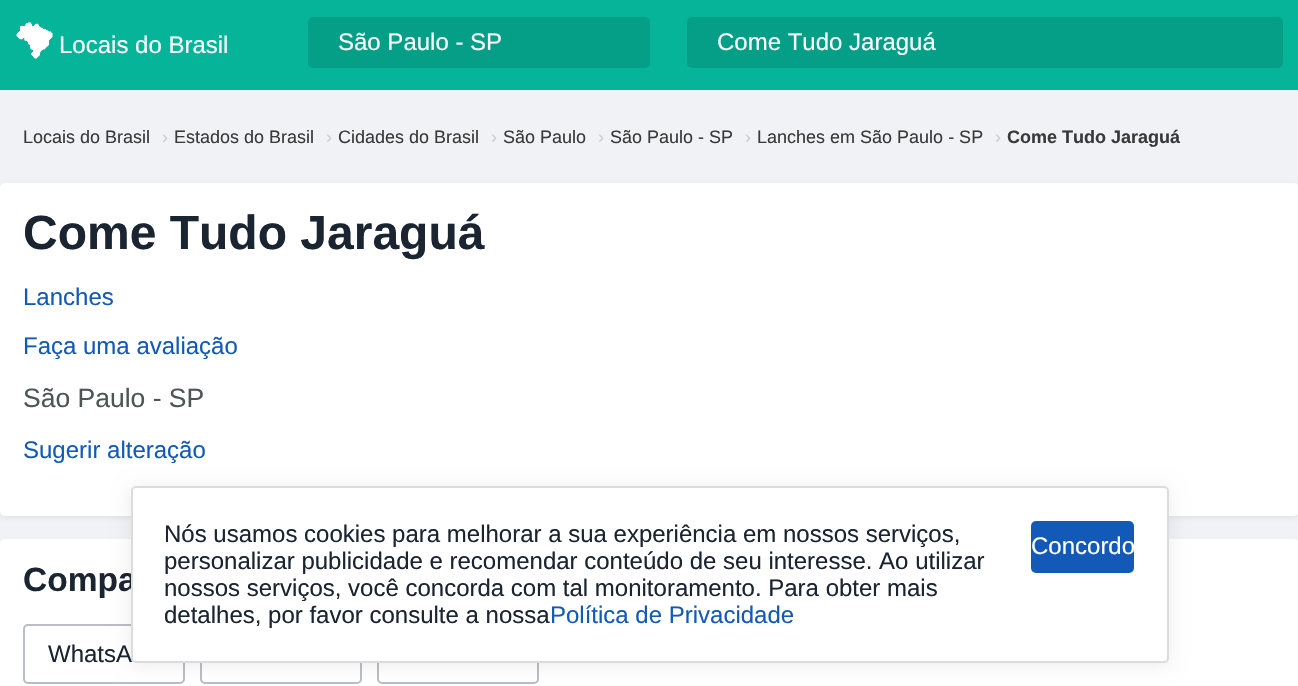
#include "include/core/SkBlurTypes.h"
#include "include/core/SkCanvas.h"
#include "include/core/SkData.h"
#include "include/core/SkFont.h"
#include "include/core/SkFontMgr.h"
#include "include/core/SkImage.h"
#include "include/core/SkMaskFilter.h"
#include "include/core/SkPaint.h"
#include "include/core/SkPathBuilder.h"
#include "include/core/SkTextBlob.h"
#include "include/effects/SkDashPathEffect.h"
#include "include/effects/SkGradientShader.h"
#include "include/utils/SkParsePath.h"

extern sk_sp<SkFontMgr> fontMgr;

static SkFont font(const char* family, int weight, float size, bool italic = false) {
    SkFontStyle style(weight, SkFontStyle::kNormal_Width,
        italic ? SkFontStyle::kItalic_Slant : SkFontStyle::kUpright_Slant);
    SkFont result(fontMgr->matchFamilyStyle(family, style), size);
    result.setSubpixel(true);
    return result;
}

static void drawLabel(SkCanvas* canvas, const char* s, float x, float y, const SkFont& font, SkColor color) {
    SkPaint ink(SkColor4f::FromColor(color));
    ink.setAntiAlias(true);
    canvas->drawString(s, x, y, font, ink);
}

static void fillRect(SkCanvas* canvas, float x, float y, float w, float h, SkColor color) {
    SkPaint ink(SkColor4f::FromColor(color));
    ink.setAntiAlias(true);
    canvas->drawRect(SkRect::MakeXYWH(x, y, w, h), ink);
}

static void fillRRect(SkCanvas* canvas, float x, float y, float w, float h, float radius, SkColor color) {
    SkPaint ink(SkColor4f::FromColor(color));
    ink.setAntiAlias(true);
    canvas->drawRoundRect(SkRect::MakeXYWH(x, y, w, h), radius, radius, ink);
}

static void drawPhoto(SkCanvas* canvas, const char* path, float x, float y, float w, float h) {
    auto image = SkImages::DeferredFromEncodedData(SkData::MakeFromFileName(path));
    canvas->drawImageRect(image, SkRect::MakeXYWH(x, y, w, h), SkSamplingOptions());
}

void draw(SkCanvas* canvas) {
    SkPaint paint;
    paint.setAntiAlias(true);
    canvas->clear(0xFFF0F2F5);
    fillRect(canvas, 0, 0, 1298, 90, 0xFF05B499);
    drawPhoto(canvas, "assets/img1.png", 16, 22, 37, 37);
    SkFont font1 = font("Liberation Sans", 400, 24);
    drawLabel(canvas, "Locais do Brasil", 59, 53, font1, 0xFFFFFFFF);
    fillRRect(canvas, 308, 17, 342, 51, 5, 0xFF059E87);
    drawLabel(canvas, "São Paulo - SP", 338, 50, font1, 0xFFFFFFFF);
    fillRRect(canvas, 687, 17, 596, 51, 5, 0xFF059E87);
    drawLabel(canvas, "Come Tudo Jaraguá", 717, 50, font1, 0xFFFFFFFF);
    SkFont font2 = font("Liberation Sans", 400, 18);
    drawLabel(canvas, "Locais do Brasil", 23, 143, font2, 0xFF3A3A3A);
    drawLabel(canvas, "›", 162, 143, font2, 0xFFCCCCCC);
    drawLabel(canvas, "Estados do Brasil", 174, 143, font2, 0xFF3A3A3A);
    drawLabel(canvas, "›", 326, 143, font2, 0xFFCCCCCC);
    drawLabel(canvas, "Cidades do Brasil", 338, 143, font2, 0xFF3A3A3A);
    drawLabel(canvas, "›", 491, 143, font2, 0xFFCCCCCC);
    drawLabel(canvas, "São Paulo", 503, 143, font2, 0xFF3A3A3A);
    drawLabel(canvas, "›", 598, 143, font2, 0xFFCCCCCC);
    drawLabel(canvas, "São Paulo - SP", 610, 143, font2, 0xFF3A3A3A);
    drawLabel(canvas, "›", 745, 143, font2, 0xFFCCCCCC);
    drawLabel(canvas, "Lanches em São Paulo - SP", 757, 143, font2, 0xFF3A3A3A);
    drawLabel(canvas, "›", 995, 143, font2, 0xFFCCCCCC);
    SkFont font3 = font("Liberation Sans", 700, 18);
    drawLabel(canvas, "Come Tudo Jaraguá", 1007, 143, font3, 0xFF3A3A3A);
    paint.setColor(0x0F000000);
    paint.setMaskFilter(SkMaskFilter::MakeBlur(kNormal_SkBlurStyle, 2));
    canvas->drawRoundRect(SkRect::MakeXYWH(0, 185, 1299, 333), 5, 5, paint);
    paint.setMaskFilter(nullptr);
    fillRRect(canvas, 0, 183, 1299, 333, 5, 0xFFFFFFFF);
    SkFont font4 = font("Liberation Sans", 700, 48);
    drawLabel(canvas, "Come Tudo Jaraguá", 23, 249, font4, 0xFF1A2531);
    drawLabel(canvas, "Lanches", 23, 305, font1, 0xFF135AB8);
    drawLabel(canvas, "Faça uma avaliação", 23, 354, font1, 0xFF135AB8);
    SkFont font5 = font("Liberation Sans", 400, 26.5f);
    drawLabel(canvas, "São Paulo - SP", 23, 407, font5, 0xFF4D5656);
    drawLabel(canvas, "Sugerir alteração", 23, 458, font1, 0xFF135AB8);
    fillRRect(canvas, 0, 539, 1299, 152, 5, 0xFFFFFFFF);
    SkFont font6 = font("Liberation Sans", 700, 33.5f);
    drawLabel(canvas, "Compa", 23, 591, font6, 0xFF1A2531);
    paint.setStroke(true);
    paint.setStrokeWidth(2);
    paint.setColor(0xFFB9BEC5);
    canvas->drawRoundRect(SkRect::MakeXYWH(24, 625, 160, 58), 4, 4, paint);
    drawLabel(canvas, "WhatsA", 48, 662, font1, 0xFF1A2531);
    canvas->drawRoundRect(SkRect::MakeXYWH(201, 625, 160, 58), 4, 4, paint);
    canvas->drawRoundRect(SkRect::MakeXYWH(378, 625, 160, 58), 4, 4, paint);
    paint.setStroke(false);
    paint.setColor(0x14000000);
    paint.setMaskFilter(SkMaskFilter::MakeBlur(kNormal_SkBlurStyle, 9));
    canvas->drawRoundRect(SkRect::MakeXYWH(131, 488, 1038, 177), 5, 5, paint);
    paint.setMaskFilter(nullptr);
    paint.setColor(0xFFFFFFFF);
    canvas->drawRoundRect(SkRect::MakeXYWH(132, 487, 1036, 175), 4, 4, paint);
    paint.setStroke(true);
    paint.setColor(0xFFDCDCDC);
    canvas->drawRoundRect(SkRect::MakeXYWH(132, 487, 1036, 175), 4, 4, paint);
    drawLabel(canvas, "Nós usamos cookies para melhorar a sua experiência em nossos serviços,", 164, 542, font1, 0xFF1A2531);
    drawLabel(canvas, "personalizar publicidade e recomendar conteúdo de seu interesse. Ao utilizar", 164, 569, font1, 0xFF1A2531);
    drawLabel(canvas, "nossos serviços, você concorda com tal monitoramento. Para obter mais", 164, 596, font1, 0xFF1A2531);
    drawLabel(canvas, "detalhes, por favor consulte a nossa", 164, 623, font1, 0xFF1A2531);
    drawLabel(canvas, "Política de Privacidade", 550, 623, font1, 0xFF135AB8);
    fillRRect(canvas, 1031, 521, 103, 52, 5, 0xFF135AB8);
    drawLabel(canvas, "Concordo", 1031, 554, font1, 0xFFFFFFFF);
}
